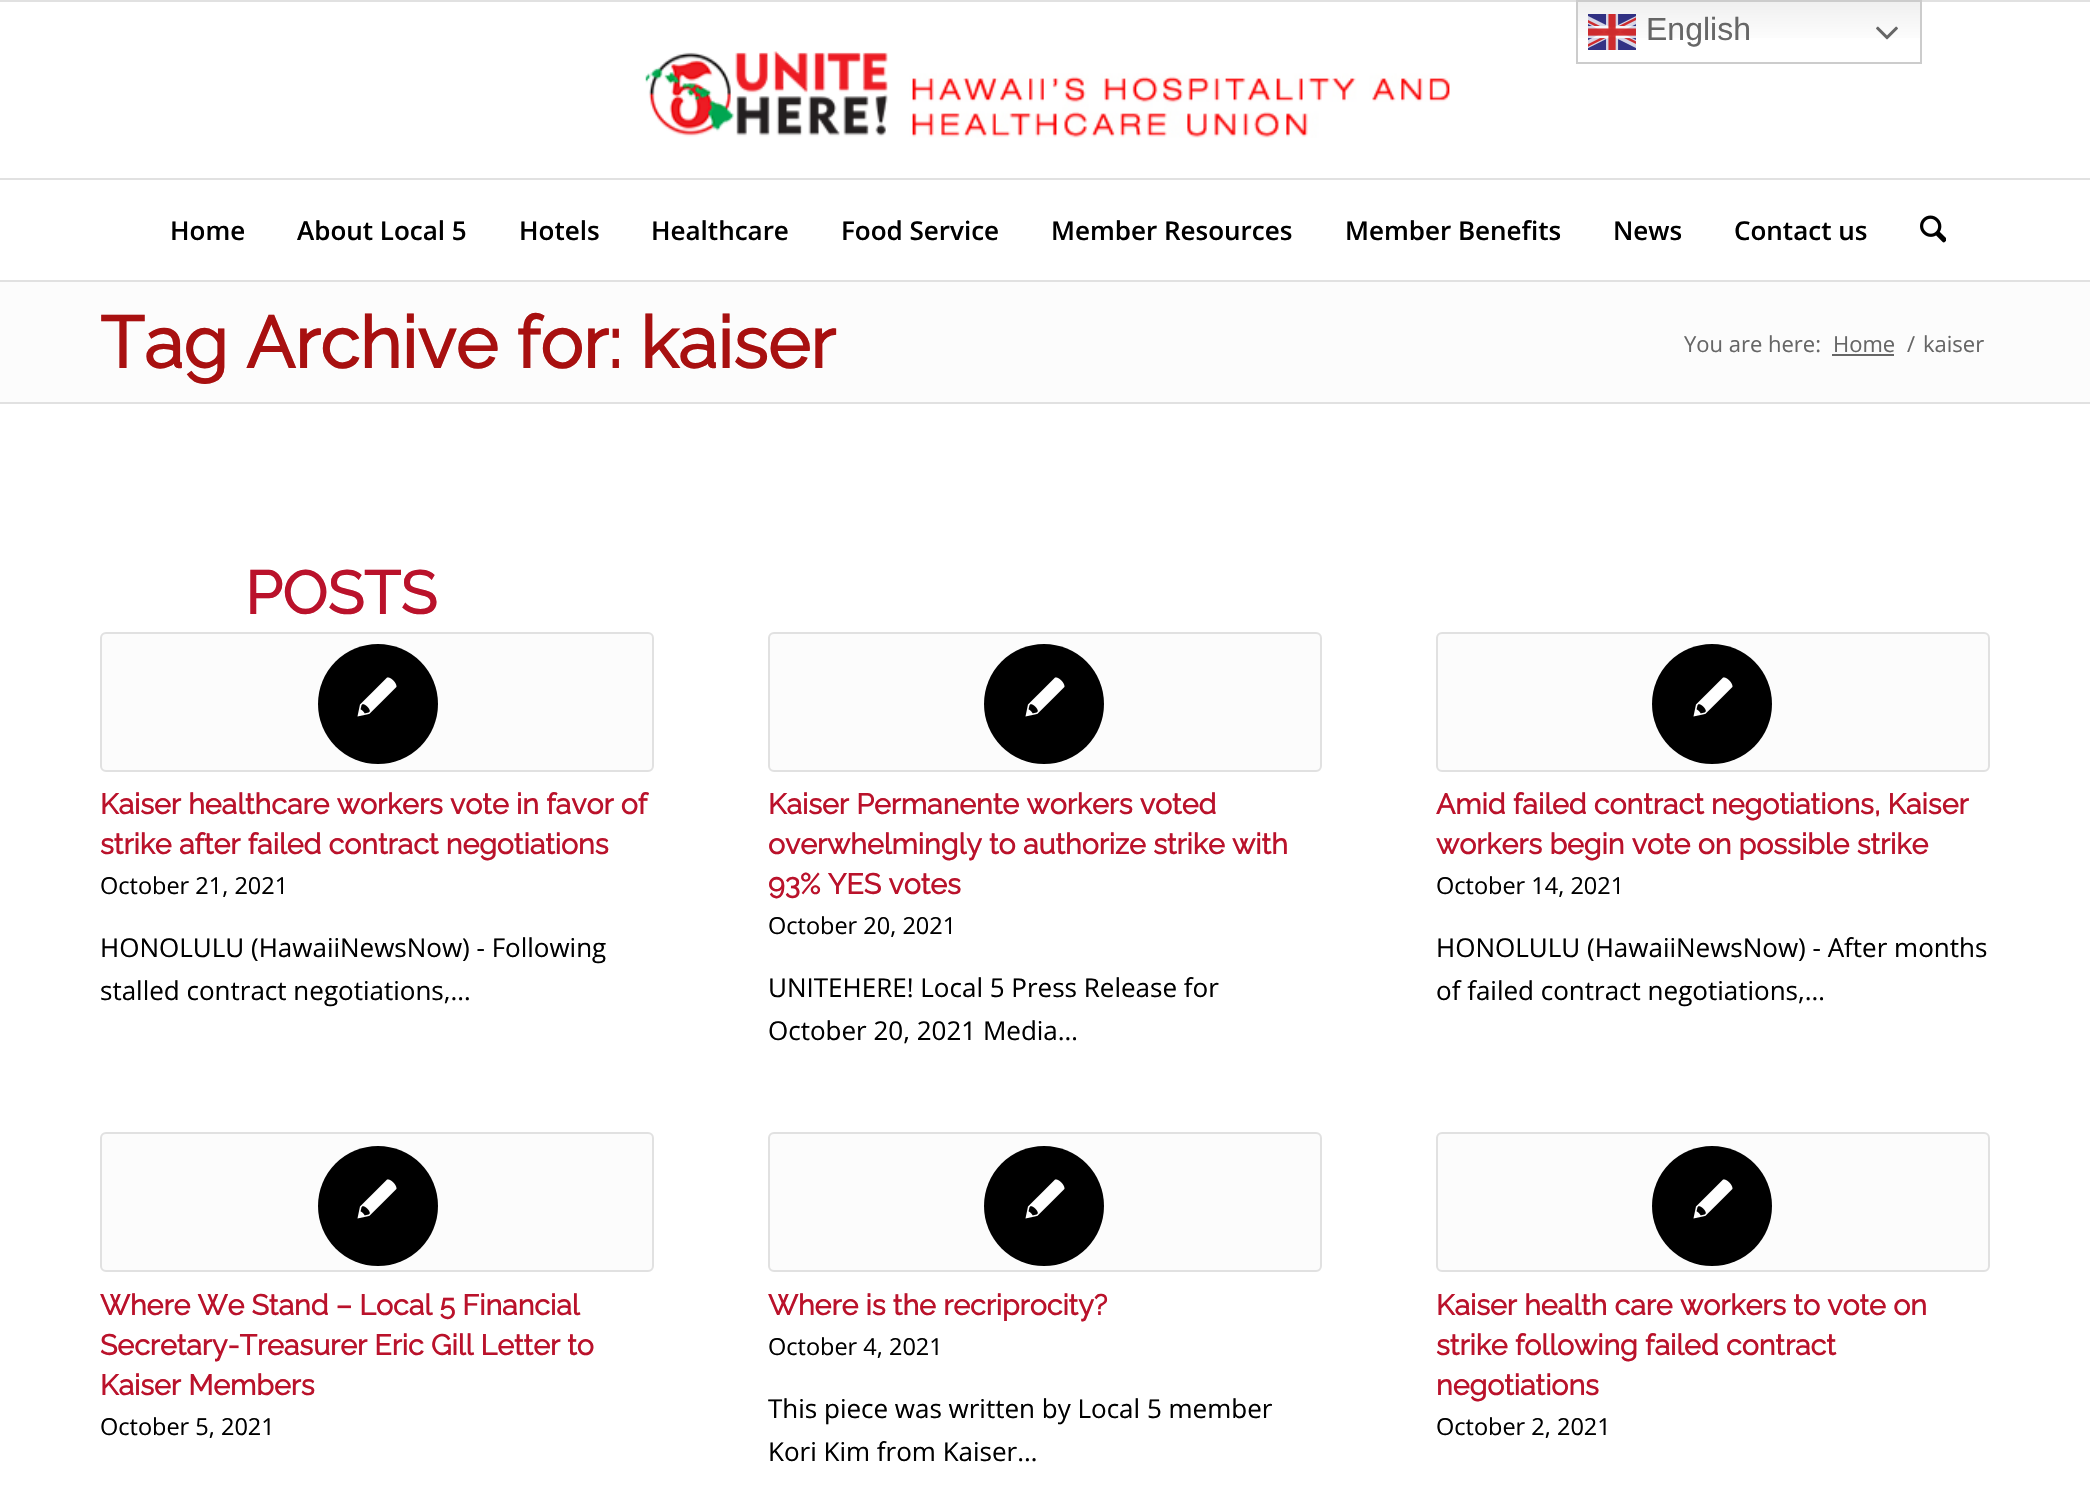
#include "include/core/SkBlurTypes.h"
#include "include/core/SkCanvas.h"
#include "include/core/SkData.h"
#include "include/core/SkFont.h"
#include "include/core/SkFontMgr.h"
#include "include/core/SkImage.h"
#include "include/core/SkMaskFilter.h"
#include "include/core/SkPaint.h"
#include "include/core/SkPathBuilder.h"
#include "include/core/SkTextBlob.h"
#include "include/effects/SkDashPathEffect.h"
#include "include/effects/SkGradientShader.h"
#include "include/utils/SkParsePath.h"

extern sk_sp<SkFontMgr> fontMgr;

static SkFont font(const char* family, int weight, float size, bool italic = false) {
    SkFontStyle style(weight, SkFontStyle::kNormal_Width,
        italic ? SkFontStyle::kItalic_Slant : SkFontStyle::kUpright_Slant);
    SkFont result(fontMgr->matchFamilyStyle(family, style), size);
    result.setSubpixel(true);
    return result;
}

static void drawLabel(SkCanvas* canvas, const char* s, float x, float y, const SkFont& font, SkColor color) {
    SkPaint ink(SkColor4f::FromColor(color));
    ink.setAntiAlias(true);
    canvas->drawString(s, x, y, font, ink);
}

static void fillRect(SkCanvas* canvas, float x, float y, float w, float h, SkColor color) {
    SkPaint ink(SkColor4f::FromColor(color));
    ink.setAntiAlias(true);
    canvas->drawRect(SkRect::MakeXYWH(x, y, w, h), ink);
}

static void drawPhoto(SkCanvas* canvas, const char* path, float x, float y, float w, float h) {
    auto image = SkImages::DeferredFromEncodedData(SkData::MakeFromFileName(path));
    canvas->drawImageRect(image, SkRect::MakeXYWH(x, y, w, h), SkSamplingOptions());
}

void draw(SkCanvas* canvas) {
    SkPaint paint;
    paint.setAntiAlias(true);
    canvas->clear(0xFFFFFFFF);
    {
        const SkColor colors[] = {0xFFEFEFEF, 0xFFFFFFFF};
        const float stops[] = {0, 0.7f};
        const SkPoint ends[] = {{1749, 0}, {1749, 64}};
        paint.setShader(SkGradientShader::MakeLinear(ends, colors, stops, 2, SkTileMode::kClamp));
        paint.setAlpha(255);
    }
    canvas->drawRect(SkRect::MakeXYWH(1578, 2, 342, 36), paint);
    fillRect(canvas, 0, 0, 2090, 2, 0xFFE1E1E1);
    paint.setStroke(true);
    paint.setStrokeWidth(2);
    paint.setShader(nullptr);
    paint.setColor(0xFFCCCCCC);
    canvas->drawRect(SkRect::MakeXYWH(1577, 1, 344, 62), paint);
    drawPhoto(canvas, "assets/img1.png", 1588, 14, 48, 36);
    SkFont font1 = font("Liberation Sans", 400, 32);
    drawLabel(canvas, "English", 1646, 40, font1, 0xFF666666);
    drawPhoto(canvas, "assets/img2.png", 1876, 26, 22, 14);
    fillRect(canvas, 0, 280, 2090, 2, 0xFFE1E1E1);
    drawPhoto(canvas, "assets/img3.png", 645, 51, 805, 87);
    fillRect(canvas, 0, 178, 2090, 2, 0xFFE1E1E1);
    SkFont font2 = font("Open Sans", 600, 26);
    drawLabel(canvas, "Home", 170, 240, font2, 0xFF000000);
    drawLabel(canvas, "About Local 5", 297, 240, font2, 0xFF000000);
    drawLabel(canvas, "Hotels", 519, 240, font2, 0xFF000000);
    drawLabel(canvas, "Healthcare", 651, 240, font2, 0xFF000000);
    drawLabel(canvas, "Food Service", 841, 240, font2, 0xFF000000);
    drawLabel(canvas, "Member Resources", 1051, 240, font2, 0xFF000000);
    drawLabel(canvas, "Member Benefits", 1345, 240, font2, 0xFF000000);
    drawLabel(canvas, "News", 1613, 240, font2, 0xFF000000);
    drawLabel(canvas, "Contact us", 1734, 240, font2, 0xFF000000);
    drawPhoto(canvas, "assets/img4.png", 1920, 215, 26, 28);
    fillRect(canvas, 0, 282, 2090, 120, 0xFFFCFCFC);
    SkFont font3 = font("Raleway", 700, 72);
    drawLabel(canvas, "Tag Archive for: kaiser", 100, 368, font3, 0xFFA81010);
    SkFont font4 = font("Open Sans", 400, 22);
    drawLabel(canvas, "You are here:", 1684, 352, font4, 0xFF666666);
    drawLabel(canvas, "Home", 1833, 352, font4, 0xFF666666);
    fillRect(canvas, 1832, 354, 62, 2, 0xFF666666);
    drawLabel(canvas, "/", 1907, 352, font4, 0xFF666666);
    drawLabel(canvas, "kaiser", 1923, 352, font4, 0xFF666666);
    fillRect(canvas, 0, 402, 2090, 2, 0xFFE1E1E1);
    SkFont font5 = font("Raleway", 700, 60);
    drawLabel(canvas, "POSTS", 245, 614, font5, 0xFFBA122B);
    paint.setStroke(false);
    paint.setColor(0xFFFCFCFC);
    canvas->drawRoundRect(SkRect::MakeXYWH(101, 633, 552, 138), 5, 5, paint);
    paint.setStroke(true);
    paint.setColor(0xFFE1E1E1);
    canvas->drawRoundRect(SkRect::MakeXYWH(101, 633, 552, 138), 5, 5, paint);
    paint.setStroke(false);
    paint.setColor(0xFF000000);
    canvas->drawCircle(378, 704, 60, paint);
    drawPhoto(canvas, "assets/img5.png", 357, 677, 40, 40);
    SkFont font6 = font("Raleway", 700, 28.6f);
    drawLabel(canvas, "Kaiser healthcare workers vote in favor of", 100, 814, font6, 0xFFBA122B);
    drawLabel(canvas, "strike after failed contract negotiations", 100, 854, font6, 0xFFBA122B);
    SkFont font7 = font("Open Sans", 400, 23.5f);
    drawLabel(canvas, "October 21, 2021", 100, 894, font7, 0xFF000000);
    SkFont font8 = font("Open Sans", 400, 26);
    drawLabel(canvas, "HONOLULU (HawaiiNewsNow) - Following", 100, 957, font8, 0xFF000000);
    drawLabel(canvas, "stalled contract negotiations,…", 100, 1000, font8, 0xFF000000);
    paint.setColor(0xFFFCFCFC);
    canvas->drawRoundRect(SkRect::MakeXYWH(769, 633, 552, 138), 5, 5, paint);
    paint.setStroke(true);
    paint.setColor(0xFFE1E1E1);
    canvas->drawRoundRect(SkRect::MakeXYWH(769, 633, 552, 138), 5, 5, paint);
    paint.setStroke(false);
    paint.setColor(0xFF000000);
    canvas->drawCircle(1044, 704, 60, paint);
    drawPhoto(canvas, "assets/img5.png", 1025, 677, 40, 40);
    drawLabel(canvas, "Kaiser Permanente workers voted", 768, 814, font6, 0xFFBA122B);
    drawLabel(canvas, "overwhelmingly to authorize strike with", 768, 854, font6, 0xFFBA122B);
    drawLabel(canvas, "93% YES votes", 768, 894, font6, 0xFFBA122B);
    drawLabel(canvas, "October 20, 2021", 768, 934, font7, 0xFF000000);
    drawLabel(canvas, "UNITEHERE! Local 5 Press Release for", 768, 997, font8, 0xFF000000);
    drawLabel(canvas, "October 20, 2021 Media…", 768, 1040, font8, 0xFF000000);
    paint.setColor(0xFFFCFCFC);
    canvas->drawRoundRect(SkRect::MakeXYWH(1437, 633, 552, 138), 5, 5, paint);
    paint.setStroke(true);
    paint.setColor(0xFFE1E1E1);
    canvas->drawRoundRect(SkRect::MakeXYWH(1437, 633, 552, 138), 5, 5, paint);
    paint.setStroke(false);
    paint.setColor(0xFF000000);
    canvas->drawCircle(1712, 704, 60, paint);
    drawPhoto(canvas, "assets/img5.png", 1693, 677, 40, 40);
    drawLabel(canvas, "Amid failed contract negotiations, Kaiser", 1436, 814, font6, 0xFFBA122B);
    drawLabel(canvas, "workers begin vote on possible strike", 1436, 854, font6, 0xFFBA122B);
    drawLabel(canvas, "October 14, 2021", 1436, 894, font7, 0xFF000000);
    drawLabel(canvas, "HONOLULU (HawaiiNewsNow) - After months", 1436, 957, font8, 0xFF000000);
    drawLabel(canvas, "of failed contract negotiations,…", 1436, 1000, font8, 0xFF000000);
    paint.setColor(0xFFFCFCFC);
    canvas->drawRoundRect(SkRect::MakeXYWH(101, 1133, 552, 138), 5, 5, paint);
    paint.setStroke(true);
    paint.setColor(0xFFE1E1E1);
    canvas->drawRoundRect(SkRect::MakeXYWH(101, 1133, 552, 138), 5, 5, paint);
    paint.setStroke(false);
    paint.setColor(0xFF000000);
    canvas->drawCircle(378, 1206, 60, paint);
    drawPhoto(canvas, "assets/img5.png", 357, 1179, 40, 40);
    drawLabel(canvas, "Where We Stand – Local 5 Financial", 100, 1315, font6, 0xFFBA122B);
    drawLabel(canvas, "Secretary-Treasurer Eric Gill Letter to", 100, 1355, font6, 0xFFBA122B);
    drawLabel(canvas, "Kaiser Members", 100, 1395, font6, 0xFFBA122B);
    drawLabel(canvas, "October 5, 2021", 100, 1435, font7, 0xFF000000);
    paint.setColor(0xFFFCFCFC);
    canvas->drawRoundRect(SkRect::MakeXYWH(769, 1133, 552, 138), 5, 5, paint);
    paint.setStroke(true);
    paint.setColor(0xFFE1E1E1);
    canvas->drawRoundRect(SkRect::MakeXYWH(769, 1133, 552, 138), 5, 5, paint);
    paint.setStroke(false);
    paint.setColor(0xFF000000);
    canvas->drawCircle(1044, 1206, 60, paint);
    drawPhoto(canvas, "assets/img5.png", 1025, 1179, 40, 40);
    drawLabel(canvas, "Where is the recriprocity?", 768, 1315, font6, 0xFFBA122B);
    drawLabel(canvas, "October 4, 2021", 768, 1355, font7, 0xFF000000);
    drawLabel(canvas, "This piece was written by Local 5 member", 768, 1418, font8, 0xFF000000);
    drawLabel(canvas, "Kori Kim from Kaiser…", 768, 1461, font8, 0xFF000000);
    paint.setColor(0xFFFCFCFC);
    canvas->drawRoundRect(SkRect::MakeXYWH(1437, 1133, 552, 138), 5, 5, paint);
    paint.setStroke(true);
    paint.setColor(0xFFE1E1E1);
    canvas->drawRoundRect(SkRect::MakeXYWH(1437, 1133, 552, 138), 5, 5, paint);
    paint.setStroke(false);
    paint.setColor(0xFF000000);
    canvas->drawCircle(1712, 1206, 60, paint);
    drawPhoto(canvas, "assets/img5.png", 1693, 1179, 40, 40);
    drawLabel(canvas, "Kaiser health care workers to vote on", 1436, 1315, font6, 0xFFBA122B);
    drawLabel(canvas, "strike following failed contract", 1436, 1355, font6, 0xFFBA122B);
    drawLabel(canvas, "negotiations", 1436, 1395, font6, 0xFFBA122B);
    drawLabel(canvas, "October 2, 2021", 1436, 1435, font7, 0xFF000000);
}
